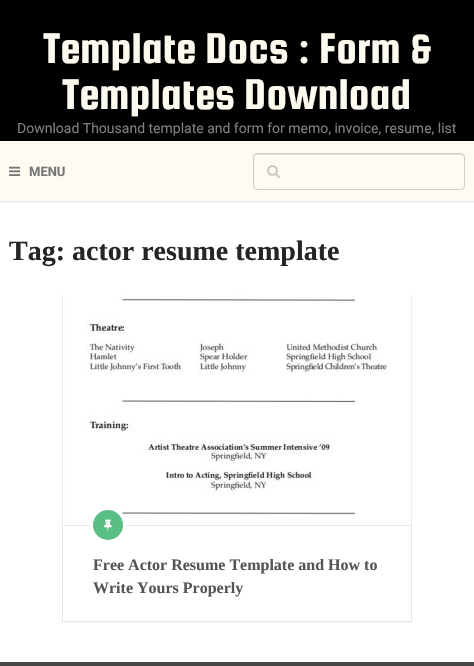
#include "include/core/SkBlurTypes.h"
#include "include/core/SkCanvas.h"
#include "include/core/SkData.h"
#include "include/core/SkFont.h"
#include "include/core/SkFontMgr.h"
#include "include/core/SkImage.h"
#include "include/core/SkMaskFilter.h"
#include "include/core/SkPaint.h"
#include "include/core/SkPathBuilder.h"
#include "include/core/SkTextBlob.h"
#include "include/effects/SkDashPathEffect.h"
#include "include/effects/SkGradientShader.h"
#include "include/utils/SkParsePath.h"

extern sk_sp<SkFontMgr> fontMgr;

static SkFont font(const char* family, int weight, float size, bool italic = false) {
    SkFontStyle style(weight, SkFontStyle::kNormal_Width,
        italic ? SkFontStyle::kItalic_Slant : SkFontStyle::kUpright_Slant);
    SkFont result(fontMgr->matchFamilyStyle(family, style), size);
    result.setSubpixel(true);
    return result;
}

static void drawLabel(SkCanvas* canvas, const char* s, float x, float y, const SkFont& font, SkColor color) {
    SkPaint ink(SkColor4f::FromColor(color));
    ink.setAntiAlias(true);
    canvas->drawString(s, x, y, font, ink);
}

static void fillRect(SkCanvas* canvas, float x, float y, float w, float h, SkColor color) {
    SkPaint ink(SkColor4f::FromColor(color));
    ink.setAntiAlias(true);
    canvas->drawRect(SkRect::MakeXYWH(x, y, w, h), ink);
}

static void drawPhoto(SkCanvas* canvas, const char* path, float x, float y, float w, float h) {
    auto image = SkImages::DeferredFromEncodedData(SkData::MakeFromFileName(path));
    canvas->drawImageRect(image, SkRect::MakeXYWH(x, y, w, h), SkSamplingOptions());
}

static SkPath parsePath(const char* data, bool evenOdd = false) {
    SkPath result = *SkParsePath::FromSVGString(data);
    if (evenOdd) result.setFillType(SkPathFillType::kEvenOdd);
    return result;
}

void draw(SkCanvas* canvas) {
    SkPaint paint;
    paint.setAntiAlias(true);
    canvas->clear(0xFF000000);
    SkFont font1 = font("Squada One", 400, 46);
    drawLabel(canvas, "Template Docs : Form &", 43, 63, font1, 0xFFFCF9EF);
    drawLabel(canvas, "Templates Download", 62, 109, font1, 0xFFFCF9EF);
    SkFont font2 = font("Roboto", 400, 14);
    drawLabel(canvas, "Download Thousand template and form for memo, invoice, resume, list", 17, 133, font2, 0xFF808080);
    fillRect(canvas, 0, 201, 474, 461, 0xFFFFFFFF);
    paint.setColor(0x1A000000);
    paint.setMaskFilter(SkMaskFilter::MakeBlur(kNormal_SkBlurStyle, 0.5f));
    canvas->drawRect(SkRect::MakeXYWH(0, 142, 474, 60), paint);
    paint.setMaskFilter(nullptr);
    fillRect(canvas, 0, 141, 474, 60, 0xFFFFFAF2);
    drawPhoto(canvas, "assets/img1.png", 9, 166, 12, 10);
    SkFont font3 = font("Roboto", 700, 13);
    drawLabel(canvas, "MENU", 29, 176, font3, 0xFF757575);
    paint.setColor(0xFFE6E1DA);
    canvas->drawPath(parsePath("M257 155H461C463 155 464 156 464 158V157C464 155 463 154 461 154H257C255 154 254 155 254 157V158C254 156 255 155 257 155Z"), paint);
    paint.setStroke(true);
    paint.setStrokeWidth(1);
    paint.setColor(0x2E000000);
    canvas->drawRoundRect(SkRect::MakeXYWH(253.5f, 153.5f, 211, 36), 3.5f, 3.5f, paint);
    drawPhoto(canvas, "assets/img2.png", 267, 165, 13, 13);
    SkFont font4 = font("Liberation Serif", 700, 28);
    drawLabel(canvas, "Tag: actor resume template", 9, 260, font4, 0xFF252525);
    fillRect(canvas, 62, 622, 350, 1, 0xFFF7F7F7);
    drawPhoto(canvas, "assets/img3.png", 62, 295, 350, 230);
    paint.setColor(0xFFE6E6E6);
    canvas->drawRect(SkRect::MakeXYWH(62.5f, 525.5f, 349, 96), paint);
    paint.setStroke(false);
    paint.setColor(0xFF59BE84);
    canvas->drawCircle(108, 525, 16.5f, paint);
    paint.setStroke(true);
    paint.setStrokeWidth(3);
    paint.setColor(0xFFFFFFFF);
    canvas->drawCircle(108, 525, 16.5f, paint);
    drawPhoto(canvas, "assets/img4.png", 104, 519, 8, 12);
    SkFont font5 = font("Liberation Serif", 700, 16);
    drawLabel(canvas, "Free Actor Resume Template and How to", 93, 570, font5, 0xFF555555);
    drawLabel(canvas, "Write Yours Properly", 93, 593, font5, 0xFF555555);
    fillRect(canvas, 0, 662, 474, 4, 0xFF454545);
}
